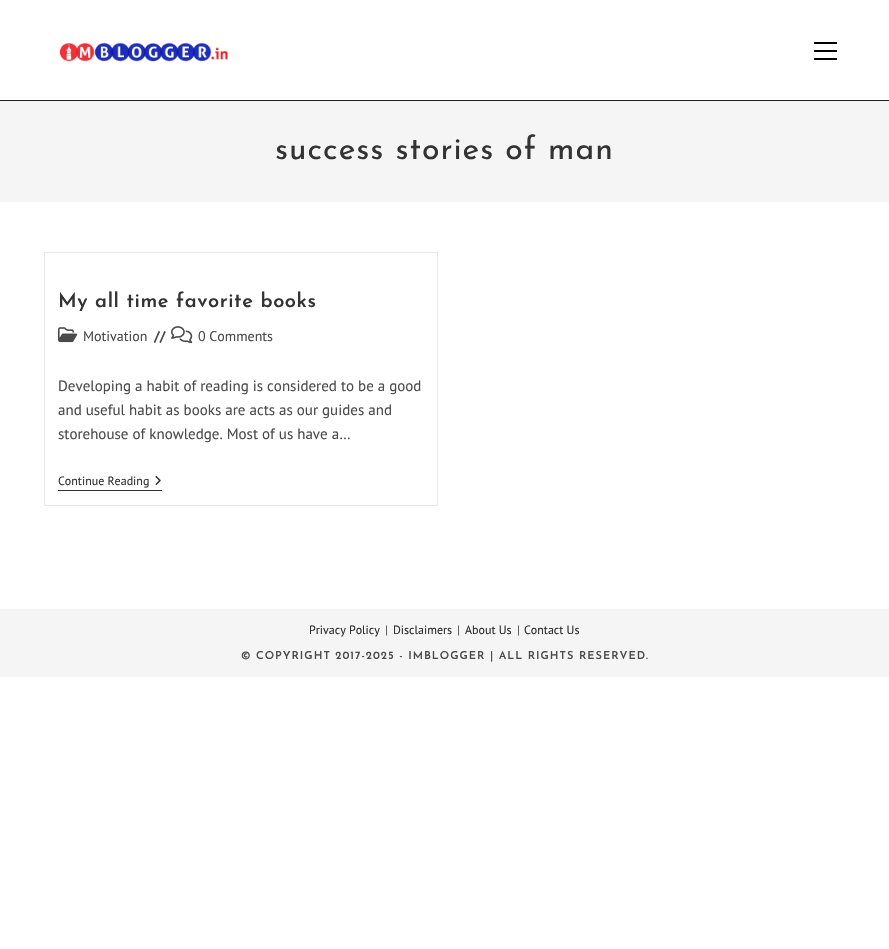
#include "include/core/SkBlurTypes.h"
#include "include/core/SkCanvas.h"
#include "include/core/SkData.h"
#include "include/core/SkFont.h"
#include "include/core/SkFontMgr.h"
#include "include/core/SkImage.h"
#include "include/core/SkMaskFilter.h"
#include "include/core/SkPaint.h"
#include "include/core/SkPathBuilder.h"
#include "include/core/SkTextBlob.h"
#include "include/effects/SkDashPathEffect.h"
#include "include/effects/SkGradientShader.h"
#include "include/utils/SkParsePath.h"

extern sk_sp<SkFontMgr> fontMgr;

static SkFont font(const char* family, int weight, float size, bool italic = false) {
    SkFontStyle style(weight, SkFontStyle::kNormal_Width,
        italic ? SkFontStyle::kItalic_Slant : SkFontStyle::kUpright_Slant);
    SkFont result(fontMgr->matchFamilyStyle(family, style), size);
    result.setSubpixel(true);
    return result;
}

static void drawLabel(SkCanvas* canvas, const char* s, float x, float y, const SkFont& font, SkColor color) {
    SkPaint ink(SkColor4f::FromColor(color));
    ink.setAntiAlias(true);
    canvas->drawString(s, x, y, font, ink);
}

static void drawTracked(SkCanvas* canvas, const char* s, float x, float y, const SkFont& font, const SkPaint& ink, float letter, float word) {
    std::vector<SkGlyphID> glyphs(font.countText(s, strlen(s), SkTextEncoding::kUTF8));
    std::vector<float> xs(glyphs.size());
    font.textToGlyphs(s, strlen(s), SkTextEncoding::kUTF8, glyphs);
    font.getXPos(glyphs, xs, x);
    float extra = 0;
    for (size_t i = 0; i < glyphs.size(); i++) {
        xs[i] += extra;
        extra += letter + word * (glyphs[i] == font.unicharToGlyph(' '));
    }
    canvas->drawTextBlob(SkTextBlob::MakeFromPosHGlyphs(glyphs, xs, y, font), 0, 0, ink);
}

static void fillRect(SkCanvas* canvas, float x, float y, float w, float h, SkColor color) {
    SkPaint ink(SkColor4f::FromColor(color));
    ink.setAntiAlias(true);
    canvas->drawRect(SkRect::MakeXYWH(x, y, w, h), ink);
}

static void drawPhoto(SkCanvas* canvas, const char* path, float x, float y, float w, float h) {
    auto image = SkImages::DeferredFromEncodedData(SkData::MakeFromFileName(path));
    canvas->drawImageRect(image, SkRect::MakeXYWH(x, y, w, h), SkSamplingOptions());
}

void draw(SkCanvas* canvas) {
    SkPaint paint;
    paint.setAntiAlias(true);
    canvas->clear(0xFFFFFFFF);
    fillRect(canvas, 0, 100, 889, 1, 0xFF212121);
    drawPhoto(canvas, "assets/img1.png", 59, 42, 169, 20);
    fillRect(canvas, 814, 50, 23, 2, 0xFF000000);
    fillRect(canvas, 814, 42, 23, 2, 0xFF000000);
    fillRect(canvas, 814, 58, 23, 2, 0xFF000000);
    fillRect(canvas, 0, 101, 889, 101, 0xFFF5F5F5);
    SkFont font1 = font("Josefin Sans", 400, 32);
    paint.setColor(0xFF333333);
    drawTracked(canvas, "success stories of man", 275, 159, font1, paint, 1, 0);
    paint.setStroke(true);
    paint.setStrokeWidth(1);
    paint.setColor(0xFFE9E9E9);
    canvas->drawRect(SkRect::MakeXYWH(44.5f, 252.5f, 393, 253), paint);
    SkFont font2 = font("Josefin Sans", 600, 20);
    paint.setStroke(false);
    paint.setColor(0xFF333333);
    drawTracked(canvas, "My all time favorite books", 58, 307, font2, paint, 0.6f, 0);
    drawPhoto(canvas, "assets/img2.png", 58, 327, 20, 16);
    SkFont font3 = font("PT Sans", 400, 14);
    drawLabel(canvas, "Motivation", 83, 341, font3, 0xFF4A4A4A);
    SkFont font4 = font("PT Sans", 700, 14);
    drawLabel(canvas, "//", 154, 341, font4, 0xFF4A4A4A);
    drawPhoto(canvas, "assets/img3.png", 171, 326, 22, 18);
    drawLabel(canvas, "0 Comments", 198, 341, font3, 0xFF4A4A4A);
    SkFont font5 = font("PT Sans", 400, 15);
    drawLabel(canvas, "Developing a habit of reading is considered to be a good", 58, 391, font5, 0xFF4A4A4A);
    drawLabel(canvas, "and useful habit as books are acts as our guides and", 58, 415, font5, 0xFF4A4A4A);
    drawLabel(canvas, "storehouse of knowledge. Most of us have a…", 58, 439, font5, 0xFF4A4A4A);
    fillRect(canvas, 58, 490, 104, 1, 0xFF333333);
    SkFont font6 = font("PT Sans", 400, 12);
    drawLabel(canvas, "Continue Reading", 58, 485, font6, 0xFF333333);
    drawPhoto(canvas, "assets/img4.png", 155, 476, 6, 9);
    fillRect(canvas, 0, 609, 889, 68, 0xFFF5F5F5);
    drawLabel(canvas, "Privacy Policy", 309, 634, font6, 0xFF2D2D2D);
    drawLabel(canvas, "|", 385, 634, font6, 0xFF4A4A4A);
    drawLabel(canvas, "Disclaimers", 393, 634, font6, 0xFF2D2D2D);
    drawLabel(canvas, "|", 457, 634, font6, 0xFF4A4A4A);
    drawLabel(canvas, "About Us", 465, 634, font6, 0xFF2D2D2D);
    drawLabel(canvas, "|", 517, 634, font6, 0xFF4A4A4A);
    drawLabel(canvas, "Contact Us", 524, 634, font6, 0xFF2D2D2D);
    SkFont font7 = font("Josefin Sans", 600, 11);
    paint.setColor(0xFF4A4A4A);
    drawTracked(canvas, "© COPYRIGHT 2017-2025 - IMBLOGGER | ALL RIGHTS RESERVED.", 241, 659, font7, paint, 1, 0);
}
